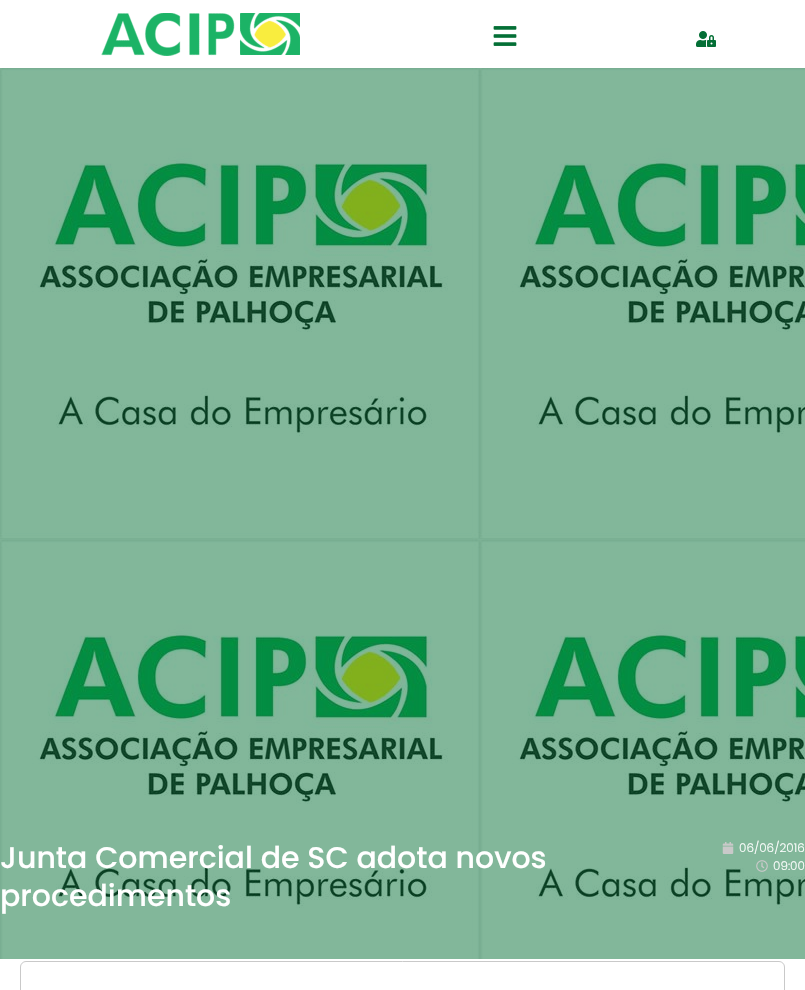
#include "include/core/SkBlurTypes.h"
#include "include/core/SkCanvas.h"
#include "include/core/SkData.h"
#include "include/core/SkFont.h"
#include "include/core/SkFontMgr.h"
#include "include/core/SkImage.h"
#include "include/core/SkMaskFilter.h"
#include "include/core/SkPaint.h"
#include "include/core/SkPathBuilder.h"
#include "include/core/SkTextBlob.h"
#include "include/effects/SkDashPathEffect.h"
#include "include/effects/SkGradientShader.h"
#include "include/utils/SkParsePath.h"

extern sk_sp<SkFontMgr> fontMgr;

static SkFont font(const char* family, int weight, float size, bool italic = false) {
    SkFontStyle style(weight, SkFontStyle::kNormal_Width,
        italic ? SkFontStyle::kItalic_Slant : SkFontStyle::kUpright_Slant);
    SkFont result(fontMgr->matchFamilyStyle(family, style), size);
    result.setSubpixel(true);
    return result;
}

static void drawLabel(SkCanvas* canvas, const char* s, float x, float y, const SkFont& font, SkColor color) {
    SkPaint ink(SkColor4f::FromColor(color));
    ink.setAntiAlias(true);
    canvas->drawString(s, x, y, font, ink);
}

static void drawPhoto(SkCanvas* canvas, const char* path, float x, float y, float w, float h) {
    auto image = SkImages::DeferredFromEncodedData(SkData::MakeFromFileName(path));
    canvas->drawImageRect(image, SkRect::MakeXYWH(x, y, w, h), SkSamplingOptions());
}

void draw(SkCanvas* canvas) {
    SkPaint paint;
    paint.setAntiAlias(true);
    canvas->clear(0xFFFFFFFF);
    drawPhoto(canvas, "assets/img1.png", 101, 13, 199, 43);
    drawPhoto(canvas, "assets/img2.png", 493, 26, 24, 20);
    drawPhoto(canvas, "assets/img3.png", 696, 31, 20, 16);
    drawPhoto(canvas, "assets/img4.png", 0, 68, 805, 891);
    SkFont font1 = font("Poppins", 500, 30);
    drawLabel(canvas, "Junta Comercial de SC adota novos", 0, 868, font1, 0xFFFFFFFF);
    drawLabel(canvas, "procedimentos", 0, 906, font1, 0xFFFFFFFF);
    drawPhoto(canvas, "assets/img5.png", 722, 842, 12, 12);
    SkFont font2 = font("Poppins", 300, 12);
    drawLabel(canvas, "06/06/2016", 739, 852, font2, 0xFFFFFFFF);
    drawPhoto(canvas, "assets/img6.png", 756, 860, 12, 12);
    drawLabel(canvas, "09:00", 773, 870, font2, 0xFFFFFFFF);
    paint.setStroke(true);
    paint.setStrokeWidth(1);
    paint.setColor(0xFFC9C9C9);
    canvas->drawRoundRect(SkRect::MakeXYWH(20.5f, 961.5f, 764, 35), 5.5f, 5.5f, paint);
}
